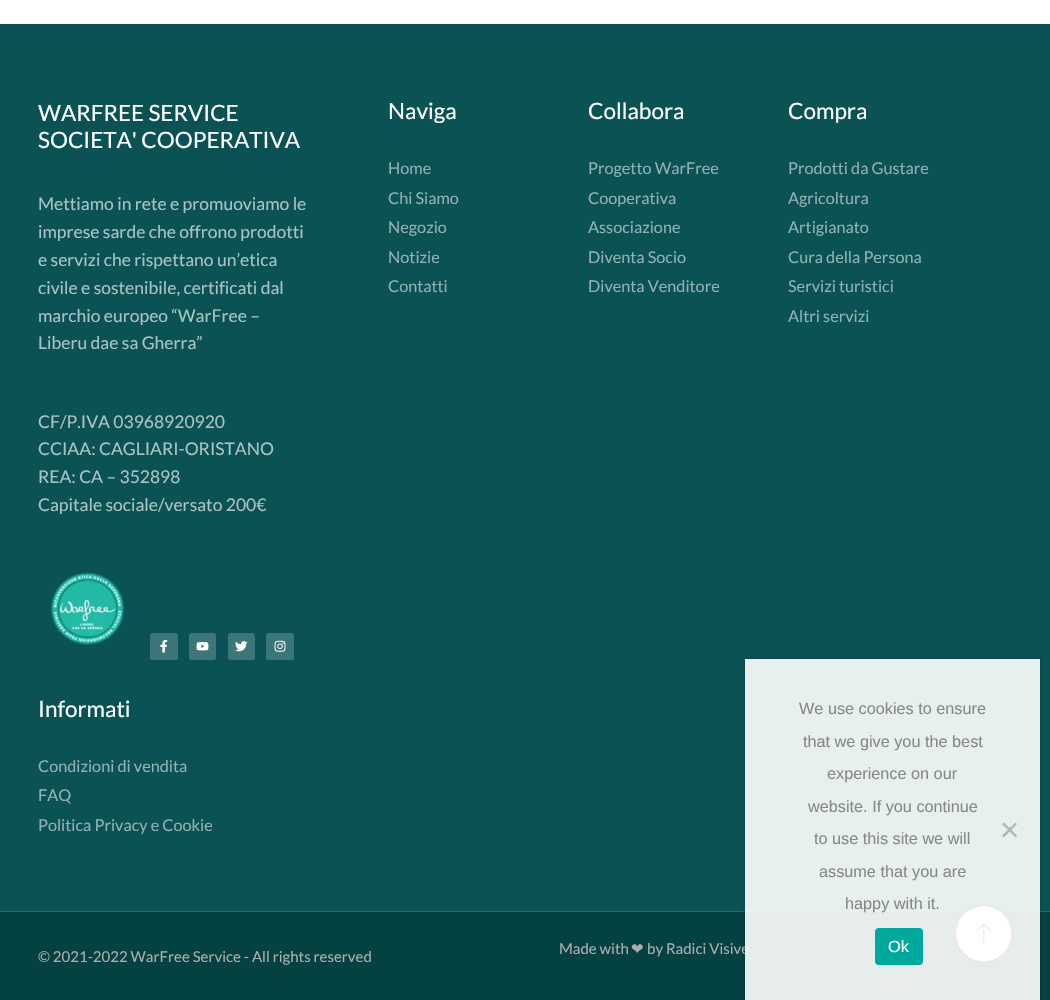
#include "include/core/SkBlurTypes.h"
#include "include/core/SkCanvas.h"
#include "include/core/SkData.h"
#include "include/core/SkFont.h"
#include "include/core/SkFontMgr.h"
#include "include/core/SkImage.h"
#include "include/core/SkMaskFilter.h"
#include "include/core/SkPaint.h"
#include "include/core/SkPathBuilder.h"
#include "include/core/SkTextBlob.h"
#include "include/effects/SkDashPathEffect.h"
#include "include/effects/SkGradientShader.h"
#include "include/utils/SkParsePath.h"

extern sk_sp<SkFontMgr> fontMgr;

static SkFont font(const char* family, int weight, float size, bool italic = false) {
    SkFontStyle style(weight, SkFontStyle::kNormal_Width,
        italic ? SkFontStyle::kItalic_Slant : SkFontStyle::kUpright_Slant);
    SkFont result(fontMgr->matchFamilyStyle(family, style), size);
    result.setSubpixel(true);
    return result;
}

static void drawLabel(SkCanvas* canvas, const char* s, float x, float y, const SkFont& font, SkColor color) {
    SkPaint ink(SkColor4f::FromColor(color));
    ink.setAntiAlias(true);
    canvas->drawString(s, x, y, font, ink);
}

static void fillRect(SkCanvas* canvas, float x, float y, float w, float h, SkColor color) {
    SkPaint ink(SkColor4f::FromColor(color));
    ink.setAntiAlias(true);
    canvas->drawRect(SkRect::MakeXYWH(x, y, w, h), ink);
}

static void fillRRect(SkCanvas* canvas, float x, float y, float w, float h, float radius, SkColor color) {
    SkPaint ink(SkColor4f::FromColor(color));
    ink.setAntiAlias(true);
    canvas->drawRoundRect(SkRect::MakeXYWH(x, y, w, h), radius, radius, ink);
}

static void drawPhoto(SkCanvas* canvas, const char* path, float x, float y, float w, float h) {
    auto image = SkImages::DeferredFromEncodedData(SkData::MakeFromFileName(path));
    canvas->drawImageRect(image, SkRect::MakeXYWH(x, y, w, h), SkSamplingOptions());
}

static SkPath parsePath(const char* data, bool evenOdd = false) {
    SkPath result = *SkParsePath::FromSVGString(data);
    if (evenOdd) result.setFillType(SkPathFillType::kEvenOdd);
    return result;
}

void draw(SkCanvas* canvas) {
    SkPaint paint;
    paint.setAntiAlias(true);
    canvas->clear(0xFFFFFFFF);
    fillRect(canvas, 0, 24, 1050, 887, 0xFF0A5254);
    SkFont font1 = font("Lato", 400, 22.5f);
    drawLabel(canvas, "WARFREE SERVICE", 38, 121, font1, 0xFFFFFFFF);
    drawLabel(canvas, "SOCIETA' COOPERATIVA", 38, 148, font1, 0xFFFFFFFF);
    SkFont font2 = font("Lato", 400, 17.5f);
    drawLabel(canvas, "Mettiamo in rete e promuoviamo le", 38, 210, font2, 0xFFA9C2C3);
    drawLabel(canvas, "imprese sarde che offrono prodotti", 38, 238, font2, 0xFFA9C2C3);
    drawLabel(canvas, "e servizi che rispettano un’etica", 38, 266, font2, 0xFFA9C2C3);
    drawLabel(canvas, "civile e sostenibile, certificati dal", 38, 294, font2, 0xFFA9C2C3);
    drawLabel(canvas, "marchio europeo “WarFree –", 38, 322, font2, 0xFFA9C2C3);
    drawLabel(canvas, "Liberu dae sa Gherra”", 38, 349, font2, 0xFFA9C2C3);
    drawLabel(canvas, "CF/P.IVA 03968920920", 38, 428, font2, 0xFFA9C2C3);
    drawLabel(canvas, "CCIAA: CAGLIARI-ORISTANO", 38, 455, font2, 0xFFA9C2C3);
    drawLabel(canvas, "REA: CA – 352898", 38, 483, font2, 0xFFA9C2C3);
    drawLabel(canvas, "Capitale sociale/versato 200€", 38, 511, font2, 0xFFA9C2C3);
    drawPhoto(canvas, "assets/img1.png", 51, 572, 73, 73);
    fillRRect(canvas, 150, 633, 28, 27, 2.5f, 0xFF3D7678);
    drawPhoto(canvas, "assets/img2.png", 160, 640, 8, 13);
    fillRRect(canvas, 189, 633, 27, 27, 2.5f, 0xFF3D7678);
    drawPhoto(canvas, "assets/img3.png", 196, 642, 13, 9);
    fillRRect(canvas, 228, 633, 27, 27, 2.5f, 0xFF3D7678);
    drawPhoto(canvas, "assets/img4.png", 235, 641, 13, 11);
    fillRRect(canvas, 266, 633, 28, 27, 2.5f, 0xFF3D7678);
    drawPhoto(canvas, "assets/img5.png", 274, 640, 12, 12);
    drawLabel(canvas, "Naviga", 388, 119, font1, 0xFFFFFFFF);
    SkFont font3 = font("Lato", 400, 16.25f);
    drawLabel(canvas, "Home", 388, 174, font3, 0xFF91B1B2);
    drawLabel(canvas, "Chi Siamo", 388, 204, font3, 0xFF91B1B2);
    drawLabel(canvas, "Negozio", 388, 233, font3, 0xFF91B1B2);
    drawLabel(canvas, "Notizie", 388, 263, font3, 0xFF91B1B2);
    drawLabel(canvas, "Contatti", 388, 292, font3, 0xFF91B1B2);
    drawLabel(canvas, "Collabora", 588, 119, font1, 0xFFFFFFFF);
    drawLabel(canvas, "Progetto WarFree", 588, 174, font3, 0xFF91B1B2);
    drawLabel(canvas, "Cooperativa", 588, 204, font3, 0xFF91B1B2);
    drawLabel(canvas, "Associazione", 588, 233, font3, 0xFF91B1B2);
    drawLabel(canvas, "Diventa Socio", 588, 263, font3, 0xFF91B1B2);
    drawLabel(canvas, "Diventa Venditore", 588, 292, font3, 0xFF91B1B2);
    drawLabel(canvas, "Compra", 788, 119, font1, 0xFFFFFFFF);
    drawLabel(canvas, "Prodotti da Gustare", 788, 174, font3, 0xFF91B1B2);
    drawLabel(canvas, "Agricoltura", 788, 204, font3, 0xFF91B1B2);
    drawLabel(canvas, "Artigianato", 788, 233, font3, 0xFF91B1B2);
    drawLabel(canvas, "Cura della Persona", 788, 263, font3, 0xFF91B1B2);
    drawLabel(canvas, "Servizi turistici", 788, 292, font3, 0xFF91B1B2);
    drawLabel(canvas, "Altri servizi", 788, 322, font3, 0xFF91B1B2);
    drawLabel(canvas, "Informati", 38, 717, font1, 0xFFFFFFFF);
    drawLabel(canvas, "Condizioni di vendita", 38, 772, font3, 0xFF91B1B2);
    drawLabel(canvas, "FAQ", 38, 801, font3, 0xFF91B1B2);
    drawLabel(canvas, "Politica Privacy e Cookie", 38, 831, font3, 0xFF91B1B2);
    fillRect(canvas, 0, 912, 1050, 88, 0xFF044141);
    fillRect(canvas, 0, 911, 1050, 1, 0xFF346565);
    SkFont font4 = font("Lato", 400, 15);
    drawLabel(canvas, "© 2021-2022 WarFree Service - All rights reserved", 38, 962, font4, 0xFFADADAD);
    drawLabel(canvas, "Made with", 559, 954, font4, 0xFFADADAD);
    SkFont font5 = font("DejaVu Sans", 400, 15);
    drawLabel(canvas, "❤", 631, 954, font5, 0xFFADADAD);
    drawLabel(canvas, "by Radici Visive", 647, 954, font4, 0xFFADADAD);
    paint.setColor(0xFFFFFFFF);
    canvas->drawCircle(984, 934, 28.5f, paint);
    paint.setStroke(true);
    paint.setStrokeWidth(1);
    paint.setColor(0xFFE1E1E1);
    canvas->drawCircle(984, 934, 28.5f, paint);
    canvas->save();
    canvas->clipRect(SkRect::MakeXYWH(954, 904, 60, 60));
    paint.setStrokeWidth(2.4f);
    paint.setColor(0xFF222222);
    canvas->drawPath(parsePath("M984 905C999.5 905 1012.5 918 1012.5 934C1012.5 949.5 999.5 962.5 984 962.5C968 962.5 955 949.5 955 934C955 918 968 905 984 905"), paint);
    canvas->restore();
    drawPhoto(canvas, "assets/img6.png", 976, 923, 16, 21);
    canvas->save();
    canvas->clipPath(parsePath("M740 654H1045V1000H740ZM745 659H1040V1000H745Z", true), true);
    paint.setStroke(false);
    paint.setColor(0x26000000);
    paint.setMaskFilter(SkMaskFilter::MakeBlur(kNormal_SkBlurStyle, 1));
    canvas->drawRect(SkRect::MakeXYWH(744, 658, 297, 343), paint);
    paint.setMaskFilter(nullptr);
    canvas->restore();
    fillRect(canvas, 745, 659, 295, 341, 0xE6FFFFFF);
    SkFont font6 = font("Liberation Sans", 400, 16.25f);
    drawLabel(canvas, "We use cookies to ensure", 799, 714, font6, 0xFF888888);
    drawLabel(canvas, "that we give you the best", 803, 747, font6, 0xFF888888);
    drawLabel(canvas, "experience on our", 827, 779, font6, 0xFF888888);
    drawLabel(canvas, "website. If you continue", 808, 812, font6, 0xFF888888);
    drawLabel(canvas, "to use this site we will", 814, 844, font6, 0xFF888888);
    drawLabel(canvas, "assume that you are", 819, 877, font6, 0xFF888888);
    drawLabel(canvas, "happy with it.", 845, 909, font6, 0xFF888888);
    paint.setColor(0xFFB3B7B7);
    canvas->drawPath(parsePath("M1015.5 822.5L1017 824L1004 837.5L1002 835.5Z"), paint);
    canvas->drawPath(parsePath("M1002 824L1004 822.5L1017 835.5L1015.5 837.5Z"), paint);
    fillRRect(canvas, 875, 928, 48, 37, 4, 0xFF00A99D);
    drawLabel(canvas, "Ok", 888, 952, font6, 0xFFFFFFFF);
}
